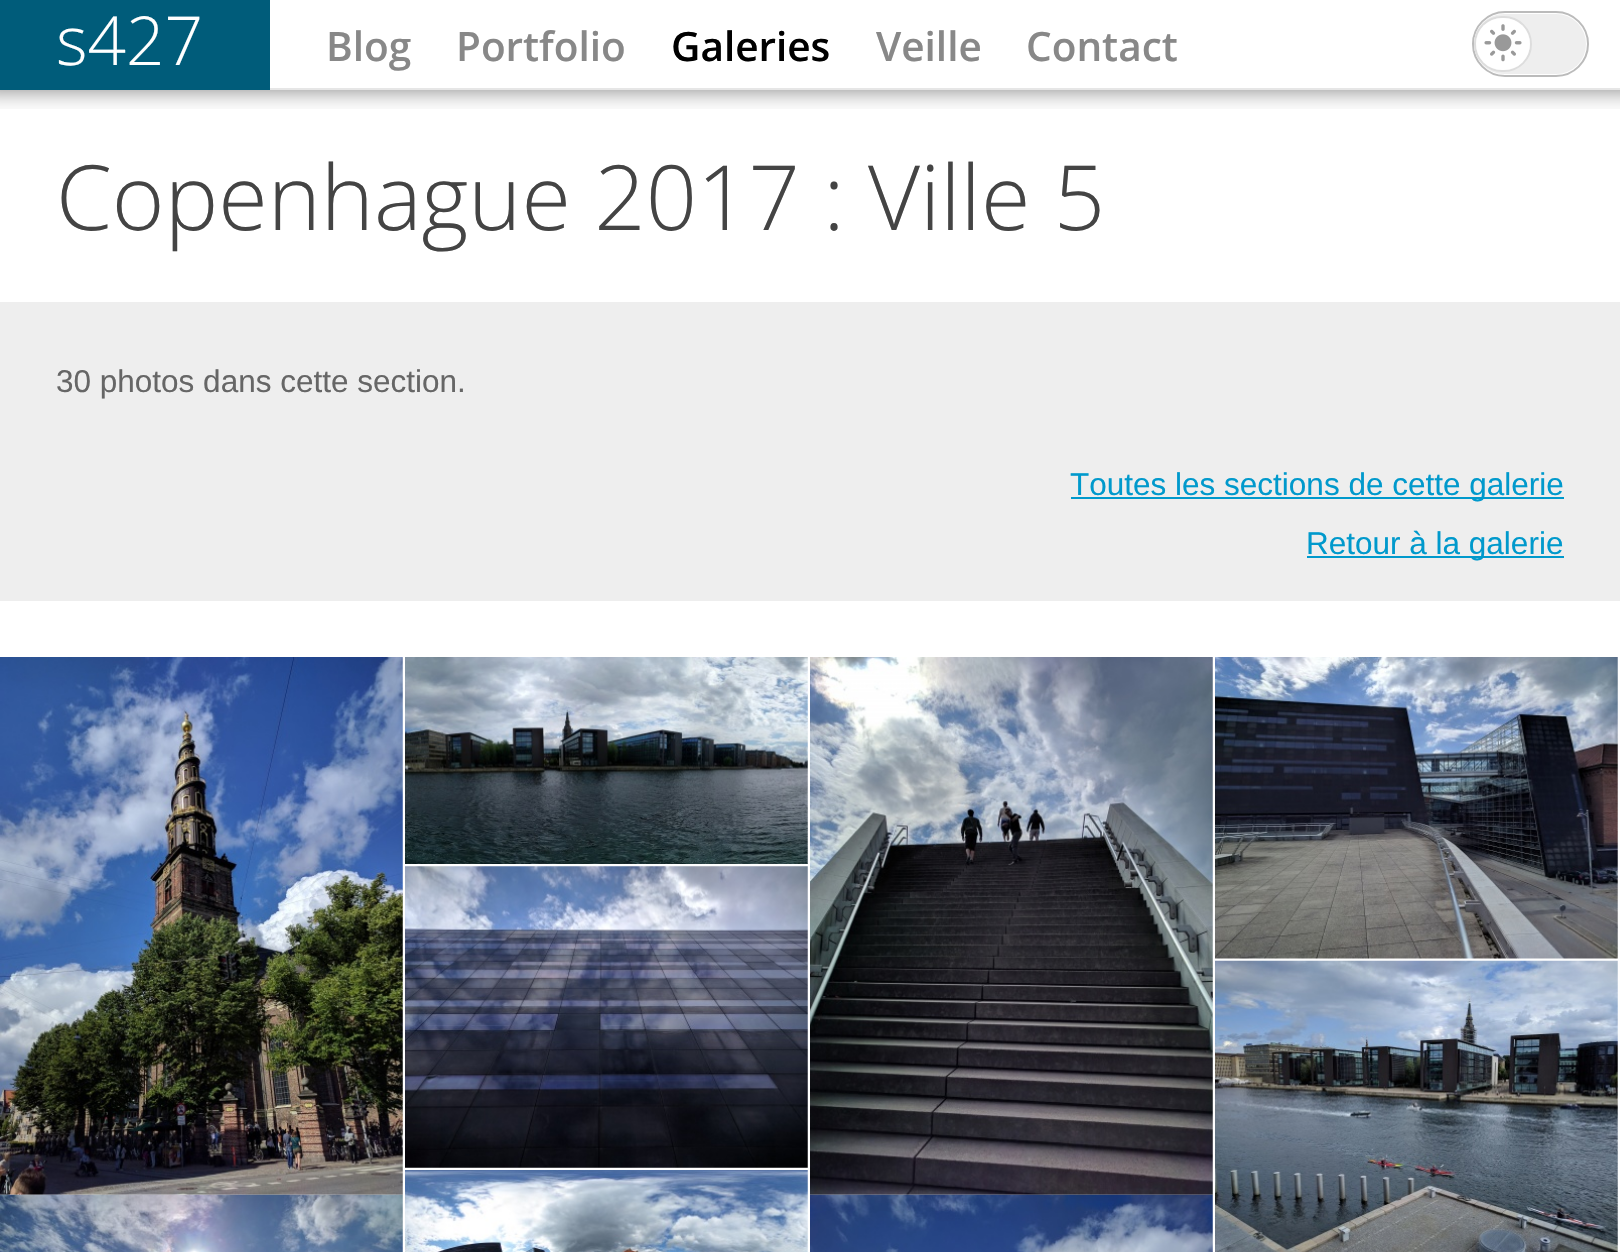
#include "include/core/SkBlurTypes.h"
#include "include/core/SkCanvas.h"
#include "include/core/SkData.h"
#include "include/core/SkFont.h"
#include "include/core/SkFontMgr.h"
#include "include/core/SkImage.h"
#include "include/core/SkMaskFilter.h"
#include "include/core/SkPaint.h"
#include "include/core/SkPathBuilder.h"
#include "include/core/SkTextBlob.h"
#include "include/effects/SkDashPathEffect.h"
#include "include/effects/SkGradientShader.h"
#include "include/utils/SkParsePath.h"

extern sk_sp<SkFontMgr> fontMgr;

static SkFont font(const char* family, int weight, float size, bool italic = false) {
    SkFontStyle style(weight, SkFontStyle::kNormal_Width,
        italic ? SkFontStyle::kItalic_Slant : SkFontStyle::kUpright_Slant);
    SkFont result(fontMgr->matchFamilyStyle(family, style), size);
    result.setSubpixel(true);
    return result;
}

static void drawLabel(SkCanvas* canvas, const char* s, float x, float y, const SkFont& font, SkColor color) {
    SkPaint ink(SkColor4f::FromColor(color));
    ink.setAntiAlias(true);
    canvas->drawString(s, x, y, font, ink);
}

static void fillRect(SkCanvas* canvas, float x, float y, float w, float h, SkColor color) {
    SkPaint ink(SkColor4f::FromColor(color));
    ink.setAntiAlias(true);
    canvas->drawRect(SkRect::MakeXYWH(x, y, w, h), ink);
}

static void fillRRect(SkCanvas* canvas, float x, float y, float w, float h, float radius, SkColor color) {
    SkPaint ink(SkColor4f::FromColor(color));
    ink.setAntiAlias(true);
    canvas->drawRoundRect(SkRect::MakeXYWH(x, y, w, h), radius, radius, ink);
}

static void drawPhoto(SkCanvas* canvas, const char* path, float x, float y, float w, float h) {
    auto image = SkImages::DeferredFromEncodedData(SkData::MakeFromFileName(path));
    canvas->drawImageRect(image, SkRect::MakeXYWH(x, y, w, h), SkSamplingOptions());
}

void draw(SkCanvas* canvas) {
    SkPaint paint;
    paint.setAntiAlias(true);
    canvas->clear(0xFFFFFFFF);
    canvas->save();
    canvas->clipRect(SkRect::MakeXYWH(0, 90, 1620, 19));
    paint.setColor(0x80000000);
    paint.setMaskFilter(SkMaskFilter::MakeBlur(kNormal_SkBlurStyle, 11));
    canvas->drawRect(SkRect::MakeXYWH(-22, -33, 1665, 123), paint);
    paint.setMaskFilter(nullptr);
    canvas->restore();
    fillRect(canvas, 0, 0, 270, 90, 0xFF005C7A);
    SkFont font1 = font("Open Sans", 300, 67.5f);
    drawLabel(canvas, "s427", 56, 65, font1, 0xFFFFFFFF);
    fillRect(canvas, 270, 88, 1350, 2, 0xFFE6E6E6);
    SkFont font2 = font("Open Sans", 600, 40.5f);
    drawLabel(canvas, "Blog", 326, 61, font2, 0xFF888888);
    drawLabel(canvas, "Portfolio", 456, 61, font2, 0xFF888888);
    drawLabel(canvas, "Galeries", 671, 61, font2, 0xFF000000);
    drawLabel(canvas, "Veille", 876, 61, font2, 0xFF888888);
    drawLabel(canvas, "Contact", 1026, 61, font2, 0xFF888888);
    paint.setStroke(true);
    paint.setStrokeWidth(2);
    paint.setColor(0xFFBBBBBB);
    canvas->drawRoundRect(SkRect::MakeXYWH(1473, 12, 115, 64), 32, 32, paint);
    fillRRect(canvas, 1474, 14, 112, 60, 30, 0xFFEEEEEE);
    paint.setColor(0xFFDDDDDD);
    canvas->drawRoundRect(SkRect::MakeXYWH(1475, 17, 56, 54), 27, 27, paint);
    fillRRect(canvas, 1476, 18, 54, 52, 26, 0xFFFFFFFF);
    drawPhoto(canvas, "assets/img1.png", 1484, 24, 38, 38);
    SkFont font3 = font("Open Sans", 300, 90);
    drawLabel(canvas, "Copenhague 2017 : Ville 5", 56, 230, font3, 0xFF444444);
    fillRect(canvas, 0, 302, 1620, 299, 0xFFEEEEEE);
    SkFont font4 = font("Liberation Sans", 400, 31.5f);
    drawLabel(canvas, "30 photos dans cette section.", 56, 392, font4, 0xFF666666);
    fillRect(canvas, 1071, 497, 493, 2, 0xFF0099CC);
    drawLabel(canvas, "Toutes les sections de cette galerie", 1070, 495, font4, 0xFF0099CC);
    fillRect(canvas, 1307, 556, 257, 2, 0xFF0099CC);
    drawLabel(canvas, "Retour à la galerie", 1306, 554, font4, 0xFF0099CC);
    drawPhoto(canvas, "assets/img2.png", 0, 657, 403, 538);
    drawPhoto(canvas, "assets/img3.png", 405, 657, 403, 207);
    drawPhoto(canvas, "assets/img4.png", 810, 657, 403, 538);
    drawPhoto(canvas, "assets/img5.png", 1215, 657, 403, 302);
    drawPhoto(canvas, "assets/img6.png", 405, 866, 403, 302);
    drawPhoto(canvas, "assets/img7.png", 1215, 960, 403, 292);
    drawPhoto(canvas, "assets/img8.png", 0, 1194, 403, 58);
    drawPhoto(canvas, "assets/img9.png", 405, 1170, 403, 82);
    drawPhoto(canvas, "assets/img10.png", 810, 1194, 403, 58);
}
